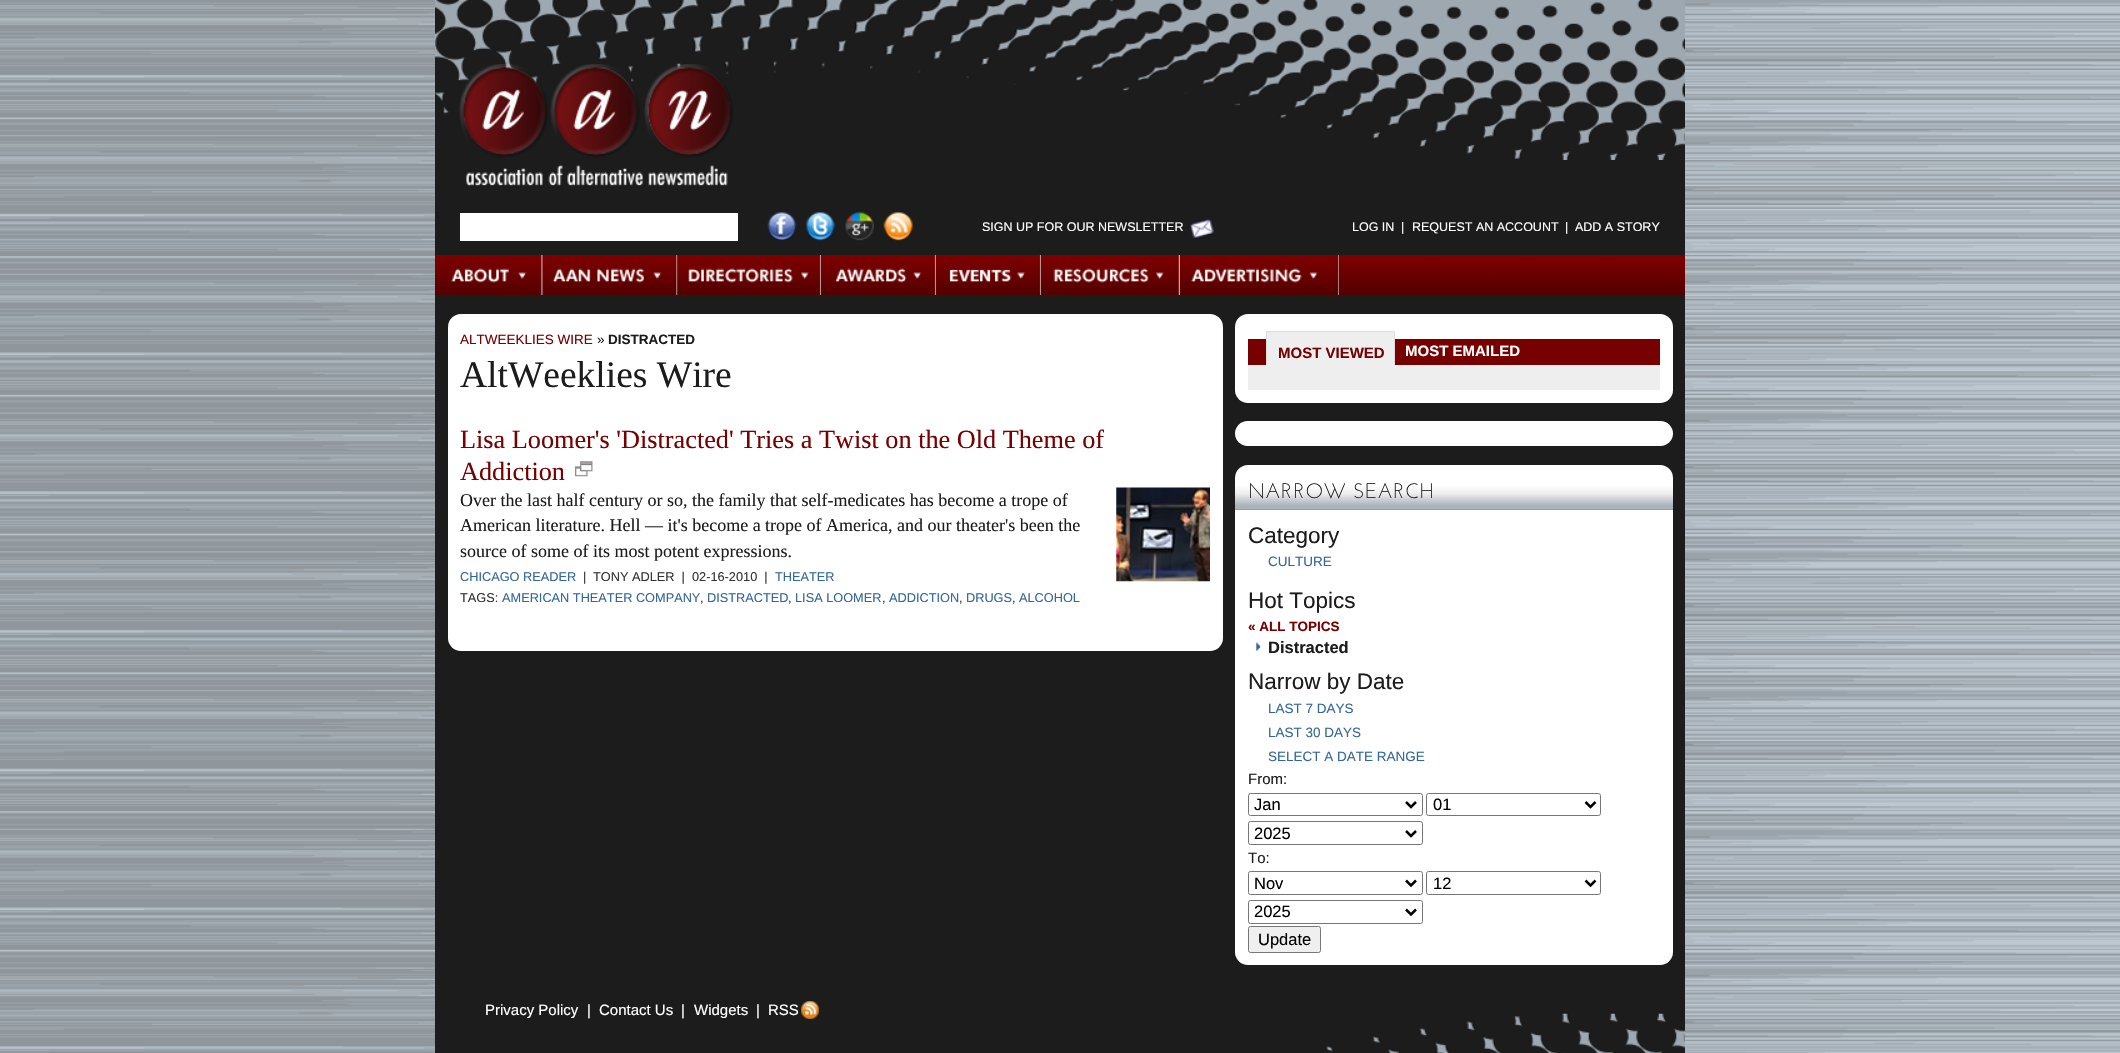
#include "include/core/SkBlurTypes.h"
#include "include/core/SkCanvas.h"
#include "include/core/SkData.h"
#include "include/core/SkFont.h"
#include "include/core/SkFontMgr.h"
#include "include/core/SkImage.h"
#include "include/core/SkMaskFilter.h"
#include "include/core/SkPaint.h"
#include "include/core/SkPathBuilder.h"
#include "include/core/SkTextBlob.h"
#include "include/effects/SkDashPathEffect.h"
#include "include/effects/SkGradientShader.h"
#include "include/utils/SkParsePath.h"

extern sk_sp<SkFontMgr> fontMgr;

static SkFont font(const char* family, int weight, float size, bool italic = false) {
    SkFontStyle style(weight, SkFontStyle::kNormal_Width,
        italic ? SkFontStyle::kItalic_Slant : SkFontStyle::kUpright_Slant);
    SkFont result(fontMgr->matchFamilyStyle(family, style), size);
    result.setSubpixel(true);
    return result;
}

static void drawLabel(SkCanvas* canvas, const char* s, float x, float y, const SkFont& font, SkColor color) {
    SkPaint ink(SkColor4f::FromColor(color));
    ink.setAntiAlias(true);
    canvas->drawString(s, x, y, font, ink);
}

static void fillRect(SkCanvas* canvas, float x, float y, float w, float h, SkColor color) {
    SkPaint ink(SkColor4f::FromColor(color));
    ink.setAntiAlias(true);
    canvas->drawRect(SkRect::MakeXYWH(x, y, w, h), ink);
}

static void fillRRect(SkCanvas* canvas, float x, float y, float w, float h, float radius, SkColor color) {
    SkPaint ink(SkColor4f::FromColor(color));
    ink.setAntiAlias(true);
    canvas->drawRoundRect(SkRect::MakeXYWH(x, y, w, h), radius, radius, ink);
}

static void drawPhoto(SkCanvas* canvas, const char* path, float x, float y, float w, float h) {
    auto image = SkImages::DeferredFromEncodedData(SkData::MakeFromFileName(path));
    canvas->drawImageRect(image, SkRect::MakeXYWH(x, y, w, h), SkSamplingOptions());
}

static SkPath parsePath(const char* data, bool evenOdd = false) {
    SkPath result = *SkParsePath::FromSVGString(data);
    if (evenOdd) result.setFillType(SkPathFillType::kEvenOdd);
    return result;
}

void draw(SkCanvas* canvas) {
    SkPaint paint;
    paint.setAntiAlias(true);
    canvas->clear(0xFFFFFFFF);
    drawPhoto(canvas, "assets/img1.png", 0, 0, 2120, 1053);
    fillRect(canvas, 435, 160, 1250, 893, 0xFF1C1C1C);
    drawPhoto(canvas, "assets/img2.png", 435, 0, 1250, 160);
    drawPhoto(canvas, "assets/img3.png", 459, 64, 274, 122);
    fillRect(canvas, 460, 213, 278, 28, 0xFFFFFFFF);
    drawPhoto(canvas, "assets/img4.png", 767, 212, 30, 29);
    drawPhoto(canvas, "assets/img5.png", 806, 212, 29, 29);
    drawPhoto(canvas, "assets/img6.png", 845, 212, 29, 29);
    drawPhoto(canvas, "assets/img7.png", 883, 212, 30, 29);
    drawPhoto(canvas, "assets/img8.png", 1190, 218, 24, 21);
    SkFont font1 = font("Liberation Sans", 400, 12.5f);
    drawLabel(canvas, "SIGN UP FOR OUR NEWSLETTER", 982, 231, font1, 0xFFFFFFFF);
    drawLabel(canvas, "LOG IN", 1352, 231, font1, 0xFFFFFFFF);
    drawLabel(canvas, "|", 1401, 231, font1, 0xFFFFFFFF);
    drawLabel(canvas, "REQUEST AN ACCOUNT", 1412, 231, font1, 0xFFFFFFFF);
    drawLabel(canvas, "|", 1565, 231, font1, 0xFFFFFFFF);
    drawLabel(canvas, "ADD A STORY", 1575, 231, font1, 0xFFFFFFFF);
    drawPhoto(canvas, "assets/img9.png", 1338, 255, 347, 40);
    fillRect(canvas, 543, 255, 1, 40, 0xFF770000);
    drawPhoto(canvas, "assets/img10.png", 435, 255, 109, 40);
    fillRect(canvas, 677, 255, 1, 40, 0xFF770000);
    drawPhoto(canvas, "assets/img11.png", 544, 255, 134, 40);
    drawPhoto(canvas, "assets/img12.png", 677, 255, 144, 40);
    fillRect(canvas, 821, 255, 1, 40, 0xFF770000);
    drawPhoto(canvas, "assets/img13.png", 821, 255, 115, 40);
    fillRect(canvas, 936, 255, 1, 40, 0xFF770000);
    drawPhoto(canvas, "assets/img14.png", 936, 255, 105, 40);
    fillRect(canvas, 1041, 255, 1, 40, 0xFF770000);
    drawPhoto(canvas, "assets/img15.png", 1041, 255, 139, 40);
    fillRect(canvas, 1337, 255, 1, 40, 0xFF770000);
    drawPhoto(canvas, "assets/img16.png", 1180, 255, 158, 40);
    fillRRect(canvas, 448, 314, 775, 337, 13, 0xFFFFFFFF);
    SkFont font2 = font("Liberation Sans", 400, 13.5f);
    drawLabel(canvas, "ALTWEEKLIES WIRE", 460, 344, font2, 0xFF770000);
    drawLabel(canvas, "»", 597, 344, font2, 0xFF1C1C1C);
    SkFont font3 = font("Liberation Sans", 700, 13.5f);
    drawLabel(canvas, "DISTRACTED", 608, 344, font3, 0xFF1C1C1C);
    SkFont font4 = font("Liberation Serif", 400, 37.5f);
    drawLabel(canvas, "AltWeeklies Wire", 460, 387, font4, 0xFF1C1C1C);
    SkFont font5 = font("Liberation Serif", 400, 26.25f);
    drawLabel(canvas, "Lisa Loomer's 'Distracted' Tries a Twist on the Old Theme of", 460, 448, font5, 0xFF770000);
    drawLabel(canvas, "Addiction", 460, 480, font5, 0xFF770000);
    drawPhoto(canvas, "assets/img17.png", 575, 461, 18, 16);
    SkFont font6 = font("Liberation Serif", 400, 18);
    drawLabel(canvas, "Over the last half century or so, the family that self-medicates has become a trope of", 460, 506, font6, 0xFF1C1C1C);
    drawLabel(canvas, "American literature. Hell — it's become a trope of America, and our theater's been the", 460, 531, font6, 0xFF1C1C1C);
    drawLabel(canvas, "source of some of its most potent expressions.", 460, 557, font6, 0xFF1C1C1C);
    drawPhoto(canvas, "assets/img18.png", 1116, 487, 94, 95);
    SkFont font7 = font("Liberation Sans", 400, 12.75f);
    drawLabel(canvas, "CHICAGO READER", 460, 581, font7, 0xFF336699);
    drawLabel(canvas, "|", 583, 581, font7, 0xFF333333);
    drawLabel(canvas, "TONY ADLER  |", 593, 581, font7, 0xFF333333);
    drawLabel(canvas, "02-16-2010  |", 692, 581, font7, 0xFF333333);
    drawLabel(canvas, "THEATER", 775, 581, font7, 0xFF336699);
    drawLabel(canvas, "TAGS:", 460, 602, font7, 0xFF333333);
    drawLabel(canvas, "AMERICAN THEATER COMPANY", 502, 602, font7, 0xFF336699);
    drawLabel(canvas, ",", 700, 602, font7, 0xFF333333);
    drawLabel(canvas, "DISTRACTED", 707, 602, font7, 0xFF336699);
    drawLabel(canvas, ",", 788, 602, font7, 0xFF333333);
    drawLabel(canvas, "LISA LOOMER", 795, 602, font7, 0xFF336699);
    drawLabel(canvas, ",", 882, 602, font7, 0xFF333333);
    drawLabel(canvas, "ADDICTION", 889, 602, font7, 0xFF336699);
    drawLabel(canvas, ",", 959, 602, font7, 0xFF333333);
    drawLabel(canvas, "DRUGS", 966, 602, font7, 0xFF336699);
    drawLabel(canvas, ",", 1012, 602, font7, 0xFF333333);
    drawLabel(canvas, "ALCOHOL", 1019, 602, font7, 0xFF336699);
    fillRRect(canvas, 1235, 314, 438, 89, 13, 0xFFFFFFFF);
    fillRect(canvas, 1248, 339, 412, 26, 0xFF770000);
    fillRect(canvas, 1267, 332, 127, 33, 0xFFEEEEEE);
    fillRect(canvas, 1266, 331, 129, 1, 0xFFDDDDDD);
    fillRect(canvas, 1394, 331, 1, 34, 0xFFDDDDDD);
    fillRect(canvas, 1266, 331, 1, 34, 0xFFDDDDDD);
    SkFont font8 = font("Liberation Sans", 700, 15);
    drawLabel(canvas, "MOST VIEWED", 1278, 358, font8, 0xFF770000);
    drawLabel(canvas, "MOST EMAILED", 1405, 356, font8, 0xFFFFFFFF);
    fillRect(canvas, 1248, 365, 412, 25, 0xFFEEEEEE);
    fillRRect(canvas, 1235, 421, 438, 25, 12.5f, 0xFFFFFFFF);
    fillRRect(canvas, 1235, 465, 438, 500, 13, 0xFFFFFFFF);
    {
        const SkColor colors[] = {0xFFABB4BC, 0xFFEEEEEE, 0xFFFFFFFF};
        const float stops[] = {0.12f, 0.5f, 0.78f};
        const SkPoint ends[] = {{1235, 509}, {1235, 478}};
        paint.setShader(SkGradientShader::MakeLinear(ends, colors, stops, 3, SkTileMode::kClamp));
        paint.setAlpha(255);
    }
    canvas->drawRect(SkRect::MakeXYWH(1235, 486, 438, 23), paint);
    fillRect(canvas, 1235, 509, 438, 1, 0xFF979FA6);
    SkFont font9 = font("Josefin Sans", 300, 21);
    drawLabel(canvas, "NARROW SEARCH", 1248, 498, font9, 0xFF1C1C1C);
    SkFont font10 = font("Liberation Sans", 400, 22.5f);
    drawLabel(canvas, "Category", 1248, 543, font10, 0xFF1C1C1C);
    drawLabel(canvas, "CULTURE", 1268, 566, font2, 0xFF336699);
    drawLabel(canvas, "Hot Topics", 1248, 608, font10, 0xFF1C1C1C);
    drawLabel(canvas, "« ALL TOPICS", 1248, 631, font3, 0xFF770000);
    drawPhoto(canvas, "assets/img19.png", 1256, 642, 5, 9);
    SkFont font11 = font("Liberation Sans", 700, 16.5f);
    drawLabel(canvas, "Distracted", 1268, 653, font11, 0xFF1C1C1C);
    drawLabel(canvas, "Narrow by Date", 1248, 689, font10, 0xFF1C1C1C);
    drawLabel(canvas, "LAST 7 DAYS", 1268, 713, font2, 0xFF336699);
    drawLabel(canvas, "LAST 30 DAYS", 1268, 737, font2, 0xFF336699);
    drawLabel(canvas, "SELECT A DATE RANGE", 1268, 761, font2, 0xFF336699);
    SkFont font12 = font("Liberation Sans", 400, 15);
    drawLabel(canvas, "From:", 1248, 784, font12, 0xFF1C1C1C);
    paint.setStroke(true);
    paint.setStrokeWidth(1);
    paint.setShader(nullptr);
    paint.setColor(0xFF767676);
    canvas->drawRoundRect(SkRect::MakeXYWH(1248.5f, 793.5f, 174, 22), 2, 2, paint);
    paint.setStrokeWidth(2.5f);
    paint.setColor(0xFF000000);
    canvas->drawPath(parsePath("M1406 802L1411 807L1416 802"), paint);
    SkFont font13 = font("Liberation Sans", 400, 16.5f);
    drawLabel(canvas, "Jan", 1254, 810, font13, 0xFF000000);
    paint.setStrokeWidth(1);
    paint.setColor(0xFF767676);
    canvas->drawRoundRect(SkRect::MakeXYWH(1426.5f, 793.5f, 174, 22), 2, 2, paint);
    paint.setStrokeWidth(2.5f);
    paint.setColor(0xFF000000);
    canvas->drawPath(parsePath("M1585.5 802L1590.5 807L1595.5 802"), paint);
    drawLabel(canvas, "01", 1433, 810, font13, 0xFF000000);
    paint.setStrokeWidth(1);
    paint.setColor(0xFF767676);
    canvas->drawRoundRect(SkRect::MakeXYWH(1248.5f, 821.5f, 174, 23), 2, 2, paint);
    paint.setStrokeWidth(2.5f);
    paint.setColor(0xFF000000);
    canvas->drawPath(parsePath("M1406 831L1411 836L1416 831"), paint);
    drawLabel(canvas, "2025", 1254, 839, font13, 0xFF000000);
    drawLabel(canvas, "To:", 1248, 863, font12, 0xFF1C1C1C);
    paint.setStrokeWidth(1);
    paint.setColor(0xFF767676);
    canvas->drawRoundRect(SkRect::MakeXYWH(1248.5f, 871.5f, 174, 23), 2, 2, paint);
    paint.setStrokeWidth(2.5f);
    paint.setColor(0xFF000000);
    canvas->drawPath(parsePath("M1406 880.5L1411 885.5L1416 880.5"), paint);
    drawLabel(canvas, "Nov", 1254, 889, font13, 0xFF000000);
    paint.setStrokeWidth(1);
    paint.setColor(0xFF767676);
    canvas->drawRoundRect(SkRect::MakeXYWH(1426.5f, 871.5f, 174, 23), 2, 2, paint);
    paint.setStrokeWidth(2.5f);
    paint.setColor(0xFF000000);
    canvas->drawPath(parsePath("M1585.5 880.5L1590.5 885.5L1595.5 880.5"), paint);
    drawLabel(canvas, "12", 1433, 889, font13, 0xFF000000);
    paint.setStrokeWidth(1);
    paint.setColor(0xFF767676);
    canvas->drawRoundRect(SkRect::MakeXYWH(1248.5f, 900.5f, 174, 23), 2, 2, paint);
    paint.setStrokeWidth(2.5f);
    paint.setColor(0xFF000000);
    canvas->drawPath(parsePath("M1406 909.5L1411 914.5L1416 909.5"), paint);
    drawLabel(canvas, "2025", 1254, 917, font13, 0xFF000000);
    paint.setStroke(false);
    paint.setColor(0xFFEFEFEF);
    canvas->drawRoundRect(SkRect::MakeXYWH(1248.5f, 926.5f, 72, 26), 2, 2, paint);
    paint.setStroke(true);
    paint.setStrokeWidth(1);
    paint.setColor(0xFF767676);
    canvas->drawRoundRect(SkRect::MakeXYWH(1248.5f, 926.5f, 72, 26), 2, 2, paint);
    drawLabel(canvas, "Update", 1258, 945, font13, 0xFF000000);
    drawPhoto(canvas, "assets/img20.png", 1325, 1013, 360, 40);
    drawLabel(canvas, "Privacy Policy", 485, 1015, font12, 0xFFFFFFFF);
    drawLabel(canvas, "|", 587, 1015, font12, 0xFFFFFFFF);
    drawLabel(canvas, "Contact Us", 599, 1015, font12, 0xFFFFFFFF);
    drawLabel(canvas, "|", 681, 1015, font12, 0xFFFFFFFF);
    drawLabel(canvas, "Widgets", 694, 1015, font12, 0xFFFFFFFF);
    drawLabel(canvas, "|", 756, 1015, font12, 0xFFFFFFFF);
    drawLabel(canvas, "RSS", 768, 1015, font12, 0xFFFFFFFF);
    drawPhoto(canvas, "assets/img21.png", 801, 1001, 18, 18);
}
